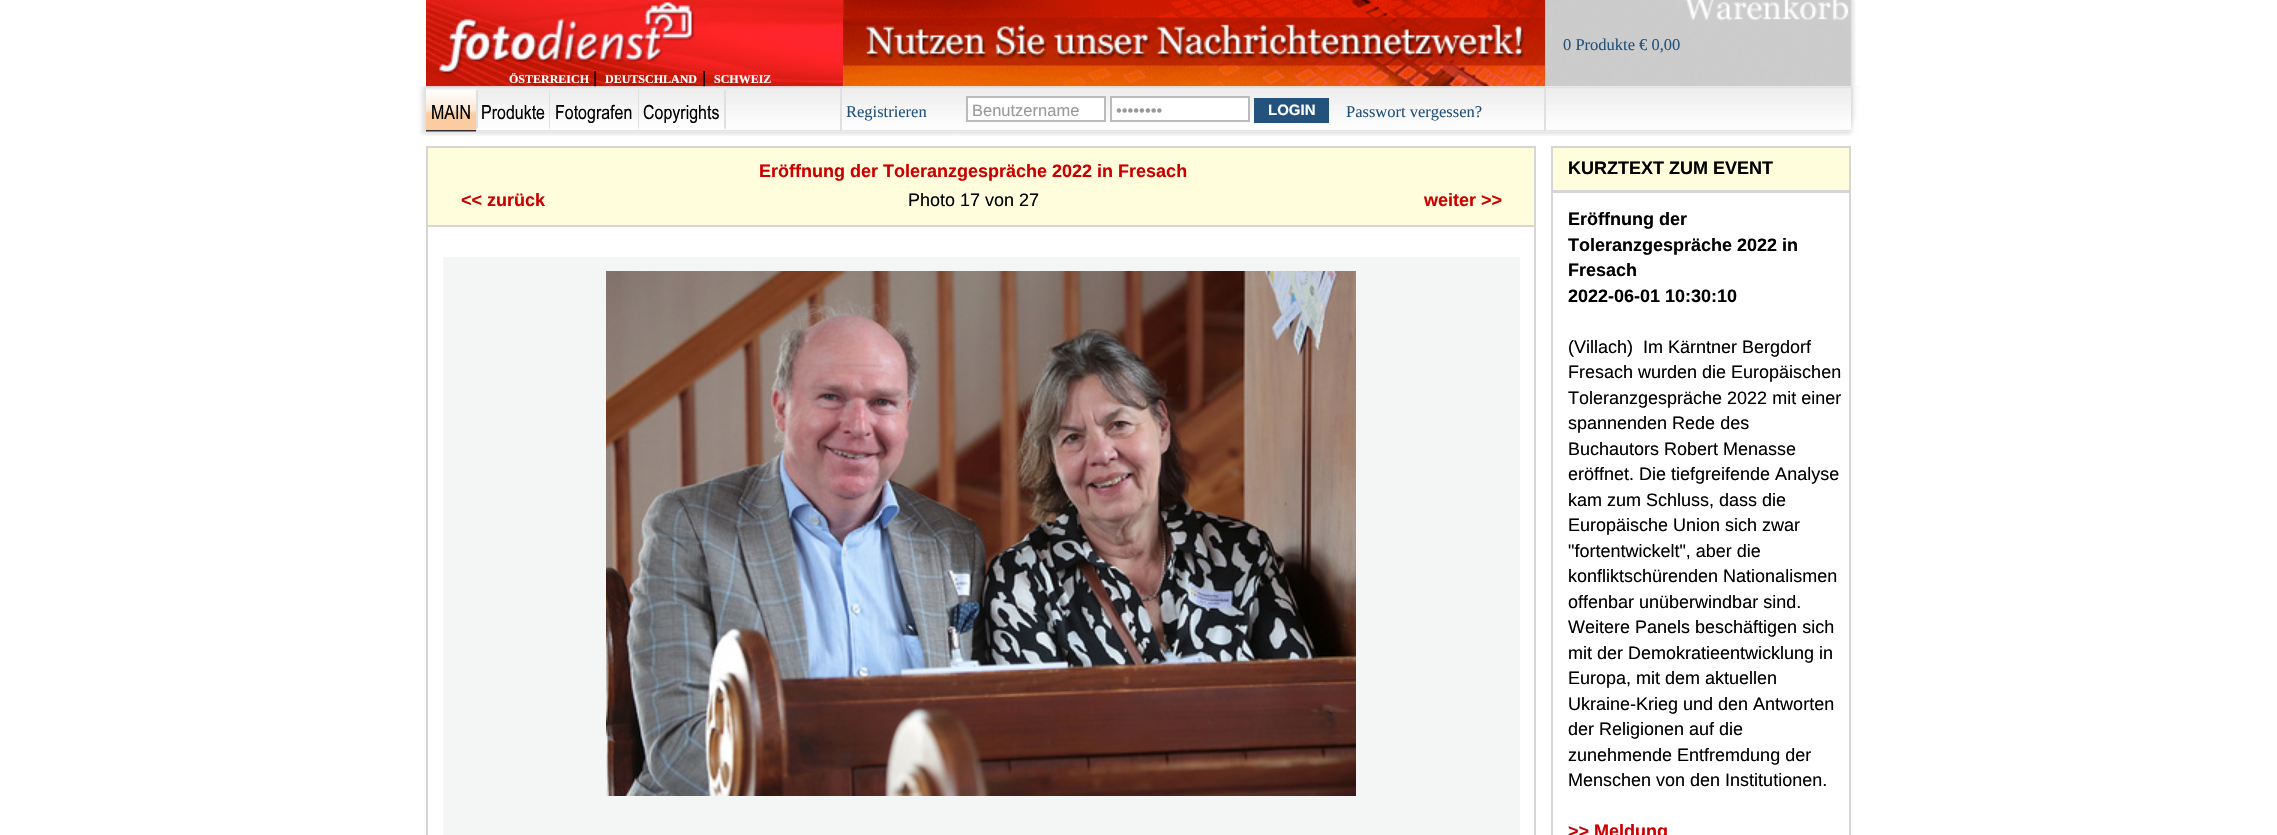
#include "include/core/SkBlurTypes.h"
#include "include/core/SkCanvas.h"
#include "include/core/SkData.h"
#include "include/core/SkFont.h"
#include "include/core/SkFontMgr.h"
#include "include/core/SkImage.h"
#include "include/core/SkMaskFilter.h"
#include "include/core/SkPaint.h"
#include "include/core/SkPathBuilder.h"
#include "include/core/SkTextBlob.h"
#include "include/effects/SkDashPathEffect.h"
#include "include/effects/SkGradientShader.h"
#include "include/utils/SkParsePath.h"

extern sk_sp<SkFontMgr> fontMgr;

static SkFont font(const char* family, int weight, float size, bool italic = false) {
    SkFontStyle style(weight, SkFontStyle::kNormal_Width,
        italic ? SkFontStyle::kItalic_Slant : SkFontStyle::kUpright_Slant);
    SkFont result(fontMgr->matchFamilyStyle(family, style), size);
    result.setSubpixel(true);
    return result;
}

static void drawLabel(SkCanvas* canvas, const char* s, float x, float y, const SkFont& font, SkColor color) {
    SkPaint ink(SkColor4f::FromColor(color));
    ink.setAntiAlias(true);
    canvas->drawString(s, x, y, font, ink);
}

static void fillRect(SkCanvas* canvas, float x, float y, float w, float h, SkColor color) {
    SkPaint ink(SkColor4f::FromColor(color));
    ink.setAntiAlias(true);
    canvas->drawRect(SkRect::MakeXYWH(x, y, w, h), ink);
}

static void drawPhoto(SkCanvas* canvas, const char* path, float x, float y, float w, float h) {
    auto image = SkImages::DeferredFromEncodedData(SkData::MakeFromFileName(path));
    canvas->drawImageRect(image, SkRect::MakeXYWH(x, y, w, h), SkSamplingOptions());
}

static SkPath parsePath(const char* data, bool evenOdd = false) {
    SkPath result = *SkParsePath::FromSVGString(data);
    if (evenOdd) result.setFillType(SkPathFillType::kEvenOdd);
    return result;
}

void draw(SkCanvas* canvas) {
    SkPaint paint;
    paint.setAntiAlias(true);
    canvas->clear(0xFFFFFFFF);
    drawPhoto(canvas, "assets/img1.png", 843, 0, 702, 87);
    drawPhoto(canvas, "assets/img2.png", 1545, 0, 311, 87);
    SkFont font1 = font("Liberation Serif", 400, 16.5f);
    drawLabel(canvas, "0 Produkte € 0,00", 1563, 50, font1, 0xFF23527C);
    drawPhoto(canvas, "assets/img3.png", 426, 0, 417, 87);
    SkFont font2 = font("Liberation Serif", 700, 12);
    drawLabel(canvas, "ÖSTERREICH", 509, 83, font2, 0xFFFFFFFF);
    SkFont font3 = font("Liberation Sans", 400, 16.5f);
    drawLabel(canvas, "|", 593, 83, font3, 0xFF000000);
    drawLabel(canvas, "DEUTSCHLAND", 605, 83, font2, 0xFFFFFFFF);
    drawLabel(canvas, "|", 702, 83, font3, 0xFF000000);
    drawLabel(canvas, "SCHWEIZ", 714, 83, font2, 0xFFFFFFFF);
    drawPhoto(canvas, "assets/img4.png", 418, 86, 1441, 46);
    drawPhoto(canvas, "assets/img5.png", 418, 86, 8, 46);
    fillRect(canvas, 426, 130, 50, 2, 0xFF313131);
    drawPhoto(canvas, "assets/img6.png", 426, 89, 51, 41);
    fillRect(canvas, 476, 90, 2, 42, 0xFFE1E0E0);
    SkFont font4 = font("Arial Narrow", 400, 19.5f);
    drawLabel(canvas, "MAIN", 431, 119, font4, 0xFF000000);
    paint.setColor(0xFFE1E0E0);
    canvas->drawPath(parsePath("M550 90V130L549 128V90Z"), paint);
    paint.setColor(0xFFFFFFFF);
    canvas->drawPath(parsePath("M550 130H477V128H549Z"), paint);
    drawLabel(canvas, "Produkte", 481, 119, font4, 0xFF000000);
    paint.setColor(0xFFE1E0E0);
    canvas->drawPath(parsePath("M639 90V130L638 128V90Z"), paint);
    paint.setColor(0xFFFFFFFF);
    canvas->drawPath(parsePath("M639 130H550V128H638Z"), paint);
    drawLabel(canvas, "Fotografen", 555, 119, font4, 0xFF000000);
    paint.setColor(0xFFE1E0E0);
    canvas->drawPath(parsePath("M726 90V130L724 128V90Z"), paint);
    paint.setColor(0xFFFFFFFF);
    canvas->drawPath(parsePath("M726 130H639V128H724Z"), paint);
    drawLabel(canvas, "Copyrights", 643, 119, font4, 0xFF000000);
    fillRect(canvas, 1544, 87, 2, 45, 0xFFE1E0E0);
    fillRect(canvas, 840, 87, 2, 45, 0xFFE1E0E0);
    drawLabel(canvas, "Registrieren", 846, 117, font1, 0xFF23527C);
    canvas->drawRect(SkRect::MakeXYWH(967, 97, 138, 24), paint);
    paint.setStroke(true);
    paint.setStrokeWidth(2);
    paint.setColor(0xFFBBBBBB);
    canvas->drawRect(SkRect::MakeXYWH(967, 97, 138, 24), paint);
    drawLabel(canvas, "Benutzername", 972, 116, font3, 0xFF999999);
    paint.setStroke(false);
    paint.setColor(0xFFFFFFFF);
    canvas->drawRect(SkRect::MakeXYWH(1111, 97, 138, 24), paint);
    paint.setStroke(true);
    paint.setColor(0xFFBBBBBB);
    canvas->drawRect(SkRect::MakeXYWH(1111, 97, 138, 24), paint);
    drawLabel(canvas, "••••••••", 1116, 116, font3, 0xFF999999);
    fillRect(canvas, 1254, 98, 75, 25, 0xFF23527C);
    SkFont font5 = font("Liberation Sans", 700, 15);
    drawLabel(canvas, "LOGIN", 1268, 115, font5, 0xFFFFFFFF);
    drawLabel(canvas, "Passwort vergessen?", 1346, 117, font1, 0xFF23527C);
    drawPhoto(canvas, "assets/img7.png", 1851, 86, 8, 46);
    drawPhoto(canvas, "assets/img8.png", 419, 131, 1439, 5);
    paint.setStroke(false);
    paint.setColor(0xFFFFFDDC);
    canvas->drawRect(SkRect::MakeXYWH(427, 147, 1108, 79), paint);
    paint.setStroke(true);
    paint.setColor(0xFFD6D6D6);
    canvas->drawRect(SkRect::MakeXYWH(427, 147, 1108, 79), paint);
    SkFont font6 = font("Liberation Sans", 700, 18);
    drawLabel(canvas, "Eröffnung der Toleranzgespräche 2022 in Fresach", 759, 177, font6, 0xFFCC0000);
    drawLabel(canvas, "<< zurück", 461, 206, font6, 0xFFCC0000);
    SkFont font7 = font("Liberation Sans", 400, 18);
    drawLabel(canvas, "Photo 17 von 27", 908, 206, font7, 0xFF000000);
    drawLabel(canvas, "weiter >>", 1424, 206, font6, 0xFFCC0000);
    canvas->drawRect(SkRect::MakeXYWH(427, 226, 1108, 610), paint);
    fillRect(canvas, 443, 257, 1077, 578, 0xFFF4F6F5);
    drawPhoto(canvas, "assets/img9.png", 606, 271, 750, 525);
    paint.setStroke(false);
    paint.setColor(0xFFFFFDDC);
    canvas->drawRect(SkRect::MakeXYWH(1552, 147, 298, 44), paint);
    paint.setStroke(true);
    paint.setColor(0xFFD6D6D6);
    canvas->drawRect(SkRect::MakeXYWH(1552, 147, 298, 44), paint);
    drawLabel(canvas, "KURZTEXT ZUM EVENT", 1568, 174, font6, 0xFF000000);
    canvas->drawRect(SkRect::MakeXYWH(1552, 192, 298, 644), paint);
    drawLabel(canvas, "Eröffnung der", 1568, 225, font6, 0xFF000000);
    drawLabel(canvas, "Toleranzgespräche 2022 in", 1568, 251, font6, 0xFF000000);
    drawLabel(canvas, "Fresach", 1568, 276, font6, 0xFF000000);
    drawLabel(canvas, "2022-06-01 10:30:10", 1568, 302, font6, 0xFF000000);
    drawLabel(canvas, "(Villach)", 1568, 353, font7, 0xFF000000);
    drawLabel(canvas, "Im Kärntner Bergdorf", 1643, 353, font7, 0xFF000000);
    drawLabel(canvas, "Fresach wurden die Europäischen", 1568, 378, font7, 0xFF000000);
    drawLabel(canvas, "Toleranzgespräche 2022 mit einer", 1568, 404, font7, 0xFF000000);
    drawLabel(canvas, "spannenden Rede des", 1568, 429, font7, 0xFF000000);
    drawLabel(canvas, "Buchautors Robert Menasse", 1568, 455, font7, 0xFF000000);
    drawLabel(canvas, "eröffnet. Die tiefgreifende Analyse", 1568, 480, font7, 0xFF000000);
    drawLabel(canvas, "kam zum Schluss, dass die", 1568, 506, font7, 0xFF000000);
    drawLabel(canvas, "Europäische Union sich zwar", 1568, 531, font7, 0xFF000000);
    drawLabel(canvas, "\"fortentwickelt\", aber die", 1568, 557, font7, 0xFF000000);
    drawLabel(canvas, "konfliktschürenden Nationalismen", 1568, 582, font7, 0xFF000000);
    drawLabel(canvas, "offenbar unüberwindbar sind.", 1568, 608, font7, 0xFF000000);
    drawLabel(canvas, "Weitere Panels beschäftigen sich", 1568, 633, font7, 0xFF000000);
    drawLabel(canvas, "mit der Demokratieentwicklung in", 1568, 659, font7, 0xFF000000);
    drawLabel(canvas, "Europa, mit dem aktuellen", 1568, 684, font7, 0xFF000000);
    drawLabel(canvas, "Ukraine-Krieg und den Antworten", 1568, 710, font7, 0xFF000000);
    drawLabel(canvas, "der Religionen auf die", 1568, 735, font7, 0xFF000000);
    drawLabel(canvas, "zunehmende Entfremdung der", 1568, 761, font7, 0xFF000000);
    drawLabel(canvas, "Menschen von den Institutionen.", 1568, 786, font7, 0xFF000000);
    drawLabel(canvas, ">> Meldung", 1568, 837, font6, 0xFFCC0000);
}
